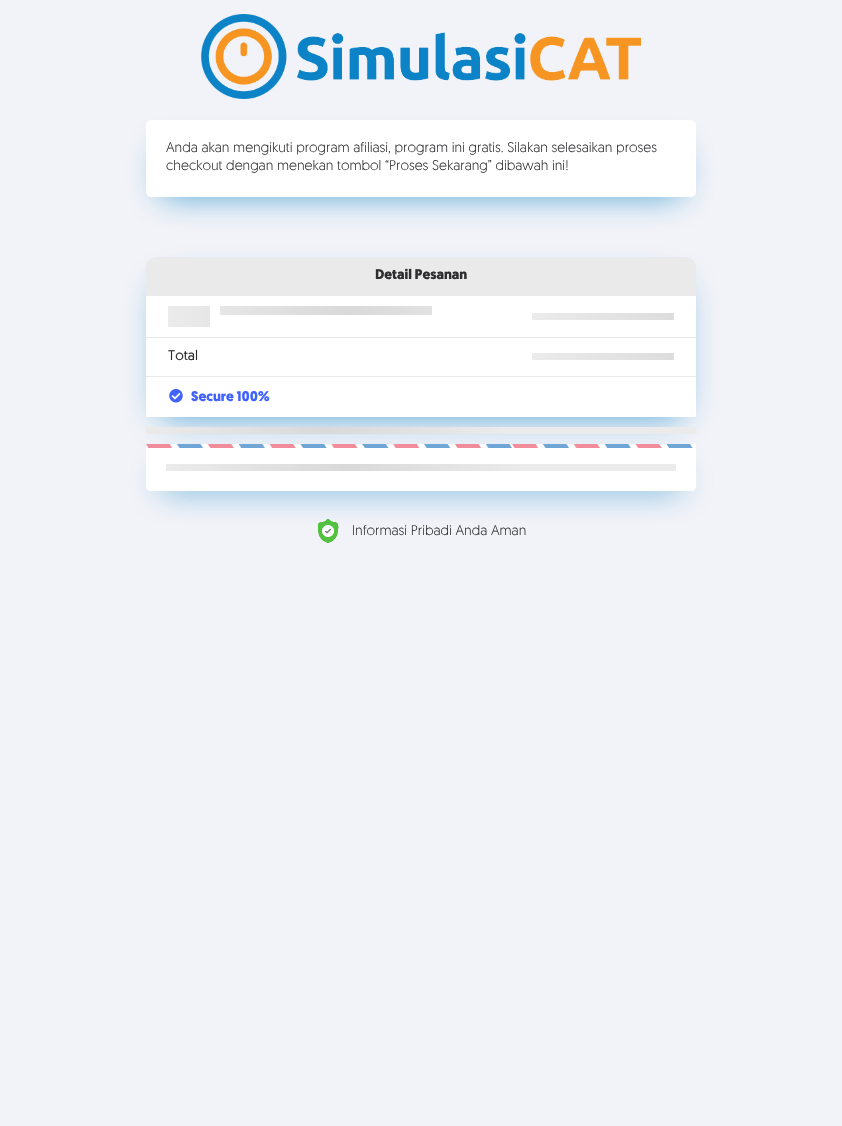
#include "include/core/SkBlurTypes.h"
#include "include/core/SkCanvas.h"
#include "include/core/SkData.h"
#include "include/core/SkFont.h"
#include "include/core/SkFontMgr.h"
#include "include/core/SkImage.h"
#include "include/core/SkMaskFilter.h"
#include "include/core/SkPaint.h"
#include "include/core/SkPathBuilder.h"
#include "include/core/SkTextBlob.h"
#include "include/effects/SkDashPathEffect.h"
#include "include/effects/SkGradientShader.h"
#include "include/utils/SkParsePath.h"

extern sk_sp<SkFontMgr> fontMgr;

static SkFont font(const char* family, int weight, float size, bool italic = false) {
    SkFontStyle style(weight, SkFontStyle::kNormal_Width,
        italic ? SkFontStyle::kItalic_Slant : SkFontStyle::kUpright_Slant);
    SkFont result(fontMgr->matchFamilyStyle(family, style), size);
    result.setSubpixel(true);
    return result;
}

static void drawLabel(SkCanvas* canvas, const char* s, float x, float y, const SkFont& font, SkColor color) {
    SkPaint ink(SkColor4f::FromColor(color));
    ink.setAntiAlias(true);
    canvas->drawString(s, x, y, font, ink);
}

static void fillRect(SkCanvas* canvas, float x, float y, float w, float h, SkColor color) {
    SkPaint ink(SkColor4f::FromColor(color));
    ink.setAntiAlias(true);
    canvas->drawRect(SkRect::MakeXYWH(x, y, w, h), ink);
}

static void fillRRect(SkCanvas* canvas, float x, float y, float w, float h, float radius, SkColor color) {
    SkPaint ink(SkColor4f::FromColor(color));
    ink.setAntiAlias(true);
    canvas->drawRoundRect(SkRect::MakeXYWH(x, y, w, h), radius, radius, ink);
}

static void drawPhoto(SkCanvas* canvas, const char* path, float x, float y, float w, float h) {
    auto image = SkImages::DeferredFromEncodedData(SkData::MakeFromFileName(path));
    canvas->drawImageRect(image, SkRect::MakeXYWH(x, y, w, h), SkSamplingOptions());
}

static SkPath parsePath(const char* data, bool evenOdd = false) {
    SkPath result = *SkParsePath::FromSVGString(data);
    if (evenOdd) result.setFillType(SkPathFillType::kEvenOdd);
    return result;
}

void draw(SkCanvas* canvas) {
    SkPaint paint;
    paint.setAntiAlias(true);
    canvas->clear(0xFFF2F3F8);
    paint.setColor(0xBF1688C8);
    paint.setMaskFilter(SkMaskFilter::MakeBlur(kNormal_SkBlurStyle, 16.5f));
    canvas->drawRect(SkRect::MakeXYWH(161, 149, 520, 47), paint);
    paint.setMaskFilter(nullptr);
    drawPhoto(canvas, "assets/img1.png", 201, 14, 440, 85);
    fillRRect(canvas, 146, 120, 550, 77, 5, 0xFFFFFFFF);
    SkFont font1 = font("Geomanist", 300, 14);
    drawLabel(canvas, "Anda akan mengikuti program afiliasi, program ini gratis. Silakan selesaikan proses", 166, 152, font1, 0xFF2E2E31);
    drawLabel(canvas, "checkout dengan menekan tombol “Proses Sekarang” dibawah ini!", 166, 170, font1, 0xFF2E2E31);
    paint.setMaskFilter(SkMaskFilter::MakeBlur(kNormal_SkBlurStyle, 16.5f));
    canvas->drawRect(SkRect::MakeXYWH(161, 286, 520, 130), paint);
    paint.setMaskFilter(nullptr);
    fillRRect(canvas, 146, 257, 550, 160, 10, 0xFFFFFFFF);
    paint.setColor(0xFFEAEAEA);
    canvas->drawPath(parsePath("M156 257H686C691.5 257 696 261.5 696 267V296H146V267C146 261.5 150.5 257 156 257Z"), paint);
    SkFont font2 = font("Geomanist", 700, 14);
    drawLabel(canvas, "Detail Pesanan", 375, 279, font2, 0xFF2E2E31);
    fillRect(canvas, 146, 337, 550, 1, 0xFFE9E9E9);
    {
        const SkColor colors[] = {0xFFEBEBEB, 0xFFD9D9D9, 0xFFEBEBEB};
        const float stops[] = {0, 0.15f, 0.3f};
        const SkPoint ends[] = {{168, 317}, {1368, 316}};
        paint.setShader(SkGradientShader::MakeLinear(ends, colors, stops, 3, SkTileMode::kClamp));
        paint.setAlpha(255);
    }
    canvas->drawRect(SkRect::MakeXYWH(168, 306, 264, 21), paint);
    fillRect(canvas, 210, 306, 10, 9, 0xFFFFFFFF);
    fillRect(canvas, 210, 315, 222, 12, 0xFFFFFFFF);
    {
        const SkColor colors[] = {0xFFEBEBEB, 0xFFD9D9D9, 0xFFEBEBEB};
        const float stops[] = {0, 0.15f, 0.3f};
        const SkPoint ends[] = {{532, 317}, {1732, 316}};
        paint.setShader(SkGradientShader::MakeLinear(ends, colors, stops, 3, SkTileMode::kClamp));
        paint.setAlpha(255);
    }
    canvas->drawRect(SkRect::MakeXYWH(532, 313, 142, 7), paint);
    SkFont font3 = font("Geomanist", 400, 14);
    drawLabel(canvas, "Total", 168, 360, font3, 0xFF2E2E31);
    {
        const SkColor colors[] = {0xFFEBEBEB, 0xFFD9D9D9, 0xFFEBEBEB};
        const float stops[] = {0, 0.15f, 0.3f};
        const SkPoint ends[] = {{532, 357}, {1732, 356}};
        paint.setShader(SkGradientShader::MakeLinear(ends, colors, stops, 3, SkTileMode::kClamp));
        paint.setAlpha(255);
    }
    canvas->drawRect(SkRect::MakeXYWH(532, 353, 142, 7), paint);
    fillRect(canvas, 146, 408, 550, 9, 0xFFFFFFFF);
    fillRect(canvas, 146, 376, 550, 1, 0xFFEAEAEA);
    drawPhoto(canvas, "assets/img2.png", 169, 389, 14, 14);
    drawLabel(canvas, "Secure 100%", 191, 401, font2, 0xFF4062FF);
    {
        const SkColor colors[] = {0xFFEBEBEB, 0xFFD9D9D9, 0xFFEBEBEB};
        const float stops[] = {0, 0.15f, 0.3f};
        const SkPoint ends[] = {{146, 431}, {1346, 430}};
        paint.setShader(SkGradientShader::MakeLinear(ends, colors, stops, 3, SkTileMode::kClamp));
        paint.setAlpha(255);
    }
    canvas->drawRect(SkRect::MakeXYWH(146, 427, 550, 7), paint);
    drawPhoto(canvas, "assets/img4.png", 318, 519, 21, 24);
    paint.setShader(nullptr);
    paint.setColor(0xBF1688C8);
    paint.setMaskFilter(SkMaskFilter::MakeBlur(kNormal_SkBlurStyle, 16.5f));
    canvas->drawRect(SkRect::MakeXYWH(161, 473, 520, 17), paint);
    paint.setMaskFilter(nullptr);
    paint.setColor(0xFFFFFFFF);
    canvas->drawPath(parsePath("M146 444H696V486C696 489 694 491 691 491H151C148 491 146 489 146 486Z"), paint);
    drawPhoto(canvas, "assets/img3.png", 146, 444, 547, 4);
    {
        const SkColor colors[] = {0xFFEBEBEB, 0xFFD9D9D9, 0xFFEBEBEB};
        const float stops[] = {0, 0.15f, 0.3f};
        const SkPoint ends[] = {{166, 468}, {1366, 467}};
        paint.setShader(SkGradientShader::MakeLinear(ends, colors, stops, 3, SkTileMode::kClamp));
        paint.setAlpha(255);
    }
    canvas->drawRect(SkRect::MakeXYWH(166, 464, 510, 7), paint);
    drawLabel(canvas, "Informasi Pribadi Anda Aman", 352, 535, font1, 0xFF2E2E31);
}
